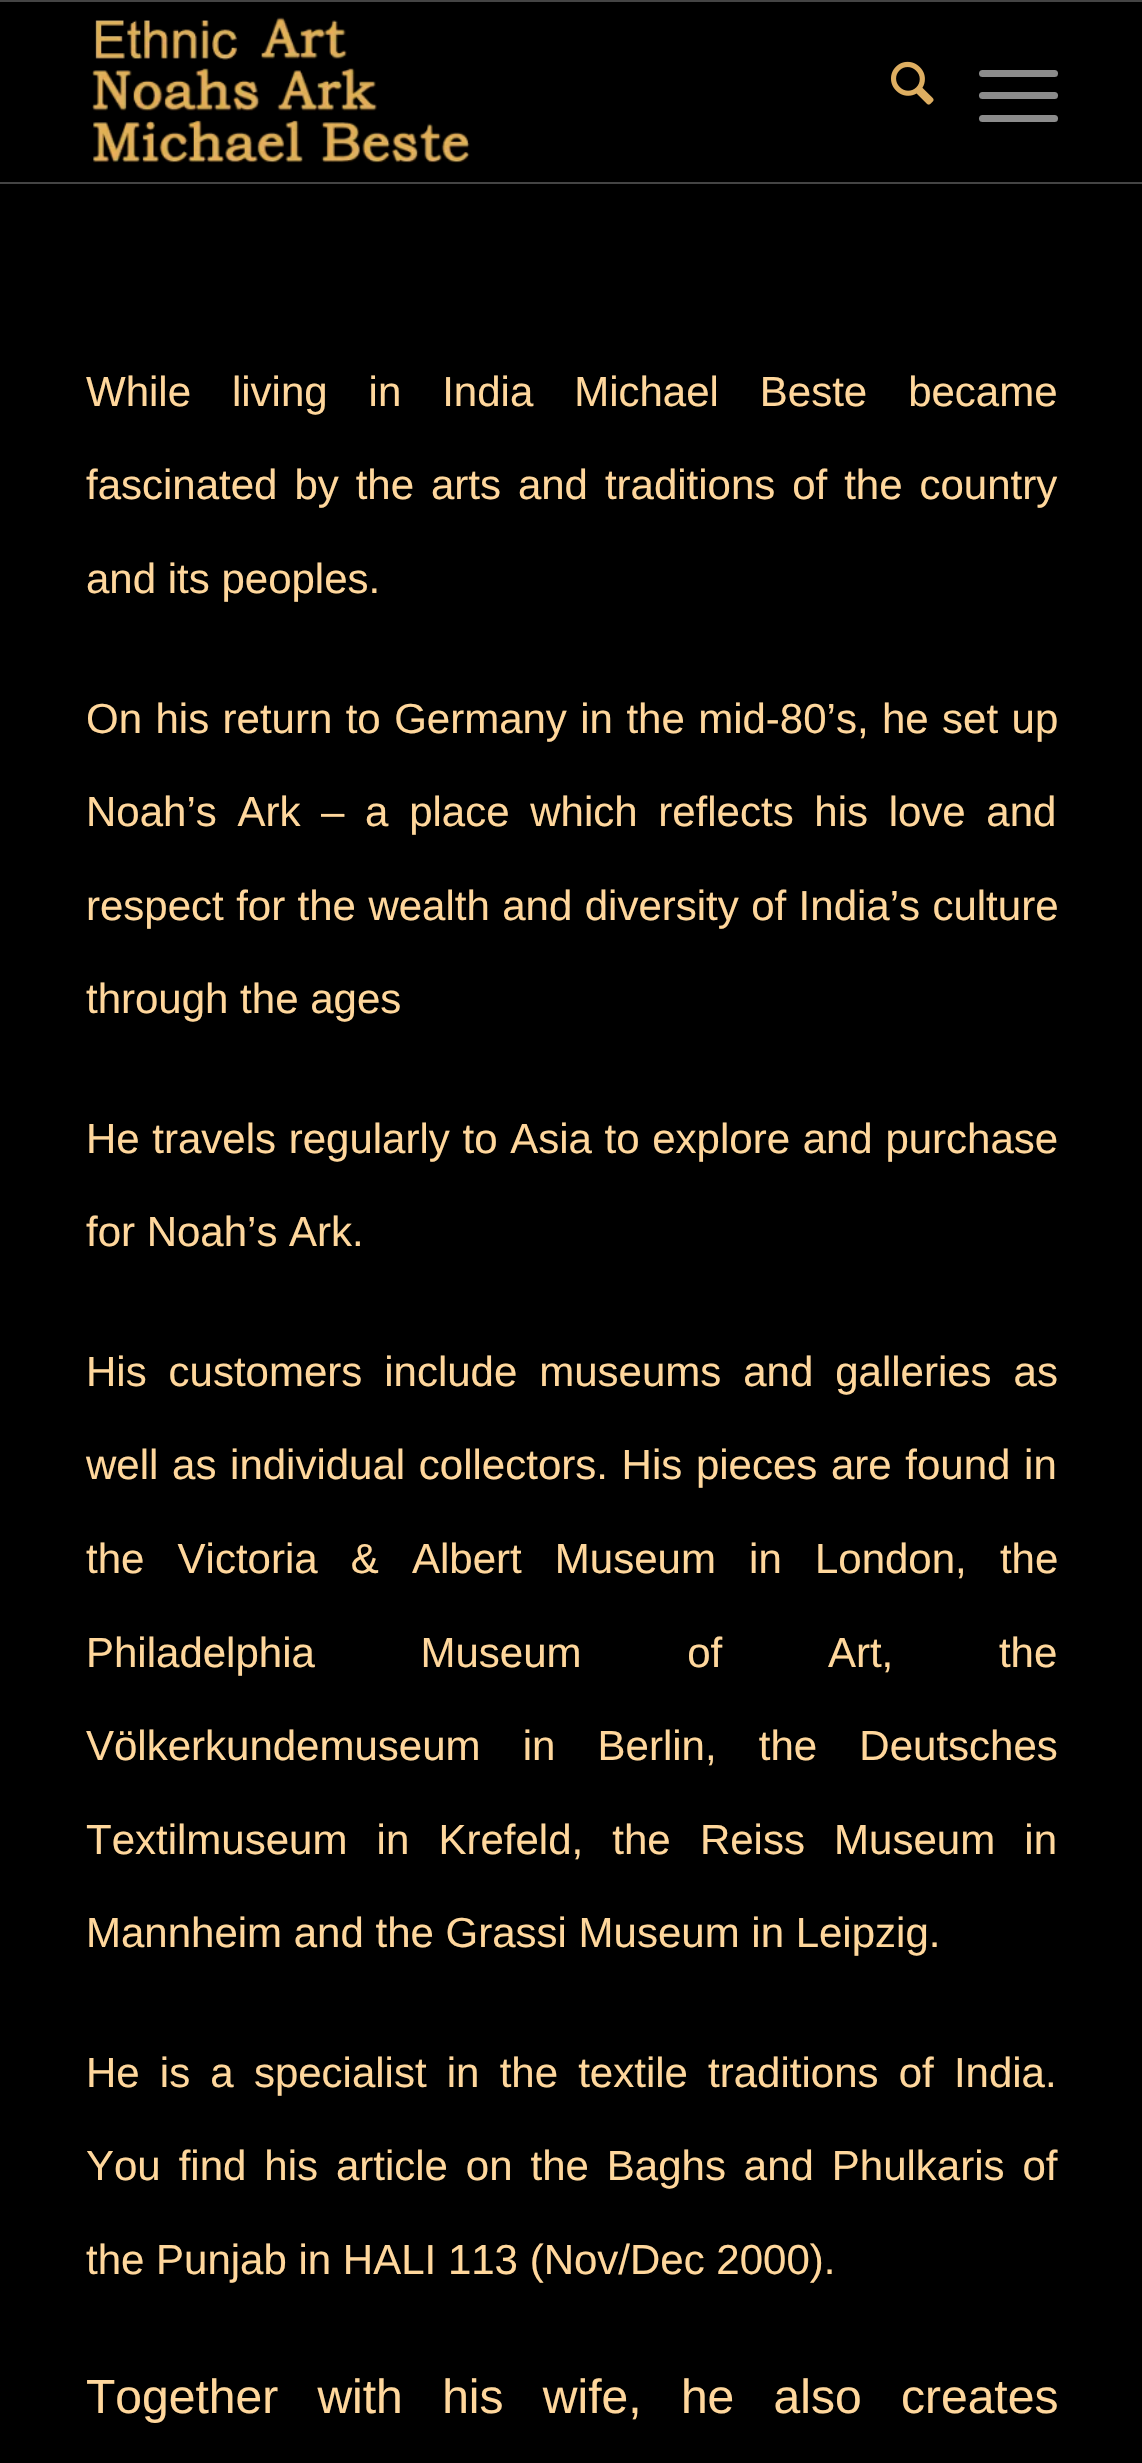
#include "include/core/SkBlurTypes.h"
#include "include/core/SkCanvas.h"
#include "include/core/SkData.h"
#include "include/core/SkFont.h"
#include "include/core/SkFontMgr.h"
#include "include/core/SkImage.h"
#include "include/core/SkMaskFilter.h"
#include "include/core/SkPaint.h"
#include "include/core/SkPathBuilder.h"
#include "include/core/SkTextBlob.h"
#include "include/effects/SkDashPathEffect.h"
#include "include/effects/SkGradientShader.h"
#include "include/utils/SkParsePath.h"

extern sk_sp<SkFontMgr> fontMgr;

static SkFont font(const char* family, int weight, float size, bool italic = false) {
    SkFontStyle style(weight, SkFontStyle::kNormal_Width,
        italic ? SkFontStyle::kItalic_Slant : SkFontStyle::kUpright_Slant);
    SkFont result(fontMgr->matchFamilyStyle(family, style), size);
    result.setSubpixel(true);
    return result;
}

static void drawLabel(SkCanvas* canvas, const char* s, float x, float y, const SkFont& font, SkColor color) {
    SkPaint ink(SkColor4f::FromColor(color));
    ink.setAntiAlias(true);
    canvas->drawString(s, x, y, font, ink);
}

static void drawTracked(SkCanvas* canvas, const char* s, float x, float y, const SkFont& font, const SkPaint& ink, float letter, float word) {
    std::vector<SkGlyphID> glyphs(font.countText(s, strlen(s), SkTextEncoding::kUTF8));
    std::vector<float> xs(glyphs.size());
    font.textToGlyphs(s, strlen(s), SkTextEncoding::kUTF8, glyphs);
    font.getXPos(glyphs, xs, x);
    float extra = 0;
    for (size_t i = 0; i < glyphs.size(); i++) {
        xs[i] += extra;
        extra += letter + word * (glyphs[i] == font.unicharToGlyph(' '));
    }
    canvas->drawTextBlob(SkTextBlob::MakeFromPosHGlyphs(glyphs, xs, y, font), 0, 0, ink);
}

static void fillRect(SkCanvas* canvas, float x, float y, float w, float h, SkColor color) {
    SkPaint ink(SkColor4f::FromColor(color));
    ink.setAntiAlias(true);
    canvas->drawRect(SkRect::MakeXYWH(x, y, w, h), ink);
}

static void fillRRect(SkCanvas* canvas, float x, float y, float w, float h, float radius, SkColor color) {
    SkPaint ink(SkColor4f::FromColor(color));
    ink.setAntiAlias(true);
    canvas->drawRoundRect(SkRect::MakeXYWH(x, y, w, h), radius, radius, ink);
}

static void drawPhoto(SkCanvas* canvas, const char* path, float x, float y, float w, float h) {
    auto image = SkImages::DeferredFromEncodedData(SkData::MakeFromFileName(path));
    canvas->drawImageRect(image, SkRect::MakeXYWH(x, y, w, h), SkSamplingOptions());
}

void draw(SkCanvas* canvas) {
    SkPaint paint;
    paint.setAntiAlias(true);
    canvas->clear(0xFF000000);
    fillRect(canvas, 0, 0, 1142, 2, 0xFF444444);
    fillRect(canvas, 0, 182, 1142, 2, 0xFF444444);
    drawPhoto(canvas, "assets/img1.png", 92, 17, 378, 146);
    drawPhoto(canvas, "assets/img2.png", 891, 61, 43, 44);
    fillRRect(canvas, 979, 92, 79, 7, 3.5f, 0xFF8C8C8C);
    fillRRect(canvas, 979, 70, 79, 7, 3.5f, 0xFF8C8C8C);
    fillRRect(canvas, 979, 115, 79, 7, 3.5f, 0xFF8C8C8C);
    SkFont font1 = font("Liberation Sans", 400, 42);
    paint.setColor(0xFFFFD79C);
    drawTracked(canvas, "While living in India Michael Beste became", 86, 406, font1, paint, 0, 29.25f);
    drawTracked(canvas, "fascinated by the arts and traditions of the country", 86, 499, font1, paint, 0, 5.25f);
    drawLabel(canvas, "and its peoples.", 86, 593, font1, 0xFFFFD79C);
    drawTracked(canvas, "On his return to Germany in the mid-80’s, he set up", 86, 733, font1, paint, 0, 1.75f);
    drawTracked(canvas, "Noah’s Ark – a place which reflects his love and", 86, 826, font1, paint, 0, 9);
    drawTracked(canvas, "respect for the wealth and diversity of India’s culture", 86, 920, font1, paint, 0, 0.75f);
    drawLabel(canvas, "through the ages", 86, 1013, font1, 0xFFFFD79C);
    drawTracked(canvas, "He travels regularly to Asia to explore and purchase", 86, 1153, font1, paint, 0, 1);
    drawLabel(canvas, "for Noah’s Ark.", 86, 1246, font1, 0xFFFFD79C);
    drawTracked(canvas, "His customers include museums and galleries as", 86, 1386, font1, paint, 0, 10.25f);
    drawTracked(canvas, "well as individual collectors. His pieces are found in", 86, 1479, font1, paint, 0, 2);
    drawTracked(canvas, "the Victoria & Albert Museum in London, the", 86, 1573, font1, paint, 0, 21.5f);
    drawTracked(canvas, "Philadelphia Museum of Art, the", 86, 1667, font1, paint, 0, 94);
    drawTracked(canvas, "Völkerkundemuseum in Berlin, the Deutsches", 86, 1760, font1, paint, 0, 30.5f);
    drawTracked(canvas, "Textilmuseum in Krefeld, the Reiss Museum in", 86, 1854, font1, paint, 0, 17.5f);
    drawLabel(canvas, "Mannheim and the Grassi Museum in Leipzig.", 86, 1947, font1, 0xFFFFD79C);
    drawTracked(canvas, "He is a specialist in the textile traditions of India.", 86, 2087, font1, paint, 0, 8.5f);
    drawTracked(canvas, "You find his article on the Baghs and Phulkaris of", 86, 2180, font1, paint, 0, 6.25f);
    drawLabel(canvas, "the Punjab in HALI 113 (Nov/Dec 2000).", 86, 2274, font1, 0xFFFFD79C);
    SkFont font2 = font("Liberation Sans", 400, 48);
    drawTracked(canvas, "Together with his wife, he also creates", 86, 2413, font2, paint, 0, 26);
}
